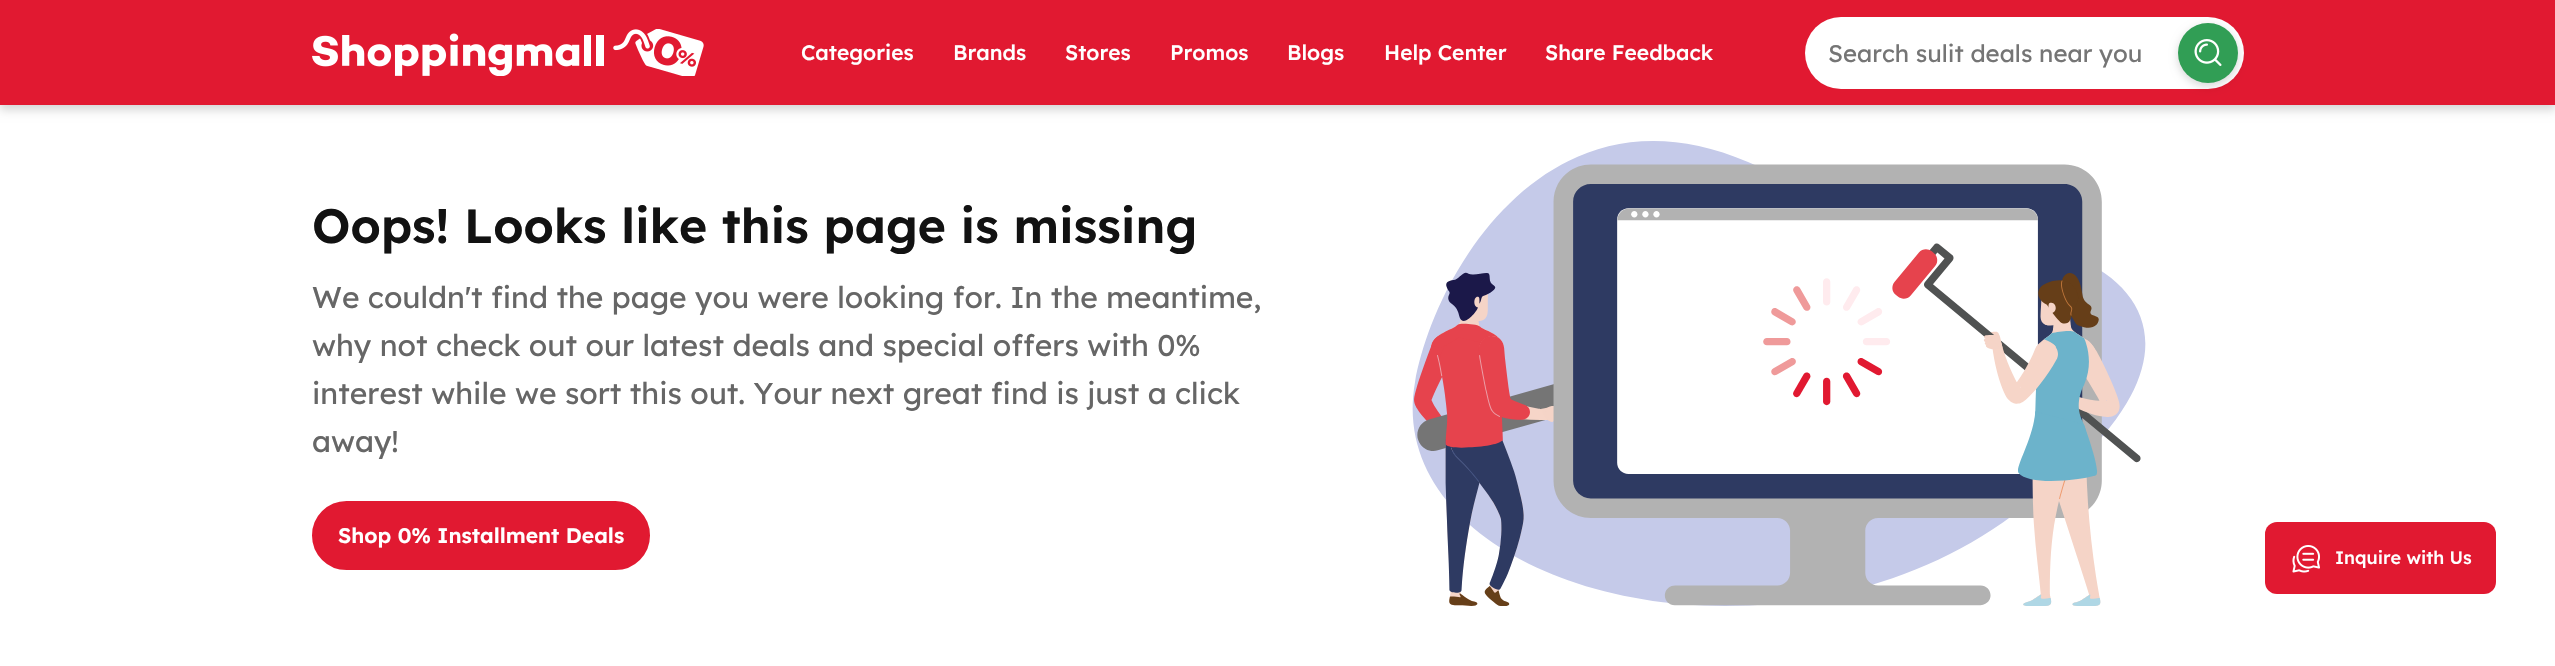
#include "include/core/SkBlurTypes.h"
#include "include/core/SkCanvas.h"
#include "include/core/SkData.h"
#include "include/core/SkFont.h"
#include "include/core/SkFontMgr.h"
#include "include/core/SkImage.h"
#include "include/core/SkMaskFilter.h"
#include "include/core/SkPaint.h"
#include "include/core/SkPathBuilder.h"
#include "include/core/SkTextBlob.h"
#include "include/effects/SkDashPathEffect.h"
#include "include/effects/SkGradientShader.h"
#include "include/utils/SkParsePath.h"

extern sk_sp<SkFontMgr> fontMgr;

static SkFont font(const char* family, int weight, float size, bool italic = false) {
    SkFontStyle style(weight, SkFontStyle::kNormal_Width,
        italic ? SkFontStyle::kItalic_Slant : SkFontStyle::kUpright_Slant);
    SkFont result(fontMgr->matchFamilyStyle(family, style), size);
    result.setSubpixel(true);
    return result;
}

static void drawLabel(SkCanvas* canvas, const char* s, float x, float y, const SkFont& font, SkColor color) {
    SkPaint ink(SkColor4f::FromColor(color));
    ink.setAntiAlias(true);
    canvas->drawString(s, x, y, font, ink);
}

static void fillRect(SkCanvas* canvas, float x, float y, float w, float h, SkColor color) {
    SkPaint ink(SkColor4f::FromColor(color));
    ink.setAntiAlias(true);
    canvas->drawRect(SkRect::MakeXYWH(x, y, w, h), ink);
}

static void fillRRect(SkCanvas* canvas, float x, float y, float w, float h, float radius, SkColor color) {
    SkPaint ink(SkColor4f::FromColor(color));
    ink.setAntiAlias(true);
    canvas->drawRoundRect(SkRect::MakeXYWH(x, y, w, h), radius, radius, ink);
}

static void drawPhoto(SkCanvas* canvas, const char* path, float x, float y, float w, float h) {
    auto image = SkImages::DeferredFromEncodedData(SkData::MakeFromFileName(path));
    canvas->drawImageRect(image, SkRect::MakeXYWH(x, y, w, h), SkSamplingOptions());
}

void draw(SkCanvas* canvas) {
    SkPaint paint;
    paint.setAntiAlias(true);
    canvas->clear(0xFFFFFFFF);
    paint.setColor(0x29000000);
    paint.setMaskFilter(SkMaskFilter::MakeBlur(kNormal_SkBlurStyle, 4.5f));
    canvas->drawRect(SkRect::MakeXYWH(0, 5, 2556, 105), paint);
    paint.setMaskFilter(nullptr);
    fillRect(canvas, 0, 0, 2555, 105, 0xFFE11931);
    drawPhoto(canvas, "assets/img1.png", 312, 29, 392, 47);
    SkFont font1 = font("Lexend", 500, 21);
    drawLabel(canvas, "Categories", 801, 60, font1, 0xFFFFFFFF);
    drawLabel(canvas, "Brands", 953, 60, font1, 0xFFFFFFFF);
    drawLabel(canvas, "Stores", 1065, 60, font1, 0xFFFFFFFF);
    drawLabel(canvas, "Promos", 1170, 60, font1, 0xFFFFFFFF);
    drawLabel(canvas, "Blogs", 1287, 60, font1, 0xFFFFFFFF);
    drawLabel(canvas, "Help Center", 1384, 60, font1, 0xFFFFFFFF);
    drawLabel(canvas, "Share Feedback", 1545, 60, font1, 0xFFFFFFFF);
    fillRRect(canvas, 1805, 17, 439, 72, 36, 0xFFFFFFFF);
    SkFont font2 = font("Lexend", 400, 24);
    drawLabel(canvas, "Search sulit deals near you", 1828, 62, font2, 0xFF757575);
    paint.setMaskFilter(SkMaskFilter::MakeBlur(kNormal_SkBlurStyle, 4.5f));
    canvas->drawRoundRect(SkRect::MakeXYWH(2178, 26, 60, 60), 30, 30, paint);
    paint.setMaskFilter(nullptr);
    paint.setColor(0xFF319E55);
    canvas->drawCircle(2208, 53, 30, paint);
    drawPhoto(canvas, "assets/img2.png", 2194, 39, 28, 27);
    SkFont font3 = font("Lexend", 600, 48);
    drawLabel(canvas, "Oops! Looks like this page is missing", 312, 243, font3, 0xFF121212);
    SkFont font4 = font("Lexend", 400, 30);
    drawLabel(canvas, "We couldn't find the page you were looking for. In the meantime,", 312, 308, font4, 0xFF666666);
    drawLabel(canvas, "why not check out our latest deals and special offers with 0%", 312, 356, font4, 0xFF666666);
    drawLabel(canvas, "interest while we sort this out. Your next great find is just a click", 312, 404, font4, 0xFF666666);
    drawLabel(canvas, "away!", 312, 452, font4, 0xFF666666);
    paint.setColor(0xFFE11931);
    canvas->drawRoundRect(SkRect::MakeXYWH(313, 502, 336, 67), 33.5f, 33.5f, paint);
    paint.setStroke(true);
    paint.setStrokeWidth(2);
    canvas->drawRoundRect(SkRect::MakeXYWH(313, 502, 336, 67), 33.5f, 33.5f, paint);
    SkFont font5 = font("Lexend", 600, 21);
    drawLabel(canvas, "Shop 0% Installment Deals", 338, 543, font5, 0xFFFFFFFF);
    drawPhoto(canvas, "assets/img3.png", 1412, 141, 734, 465);
    fillRRect(canvas, 2265, 522, 231, 72, 12, 0xFFE11931);
    drawPhoto(canvas, "assets/img4.png", 2292, 545, 28, 28);
    SkFont font6 = font("Lexend", 500, 18);
    drawLabel(canvas, "Inquire with Us", 2335, 564, font6, 0xFFFFFFFF);
}
